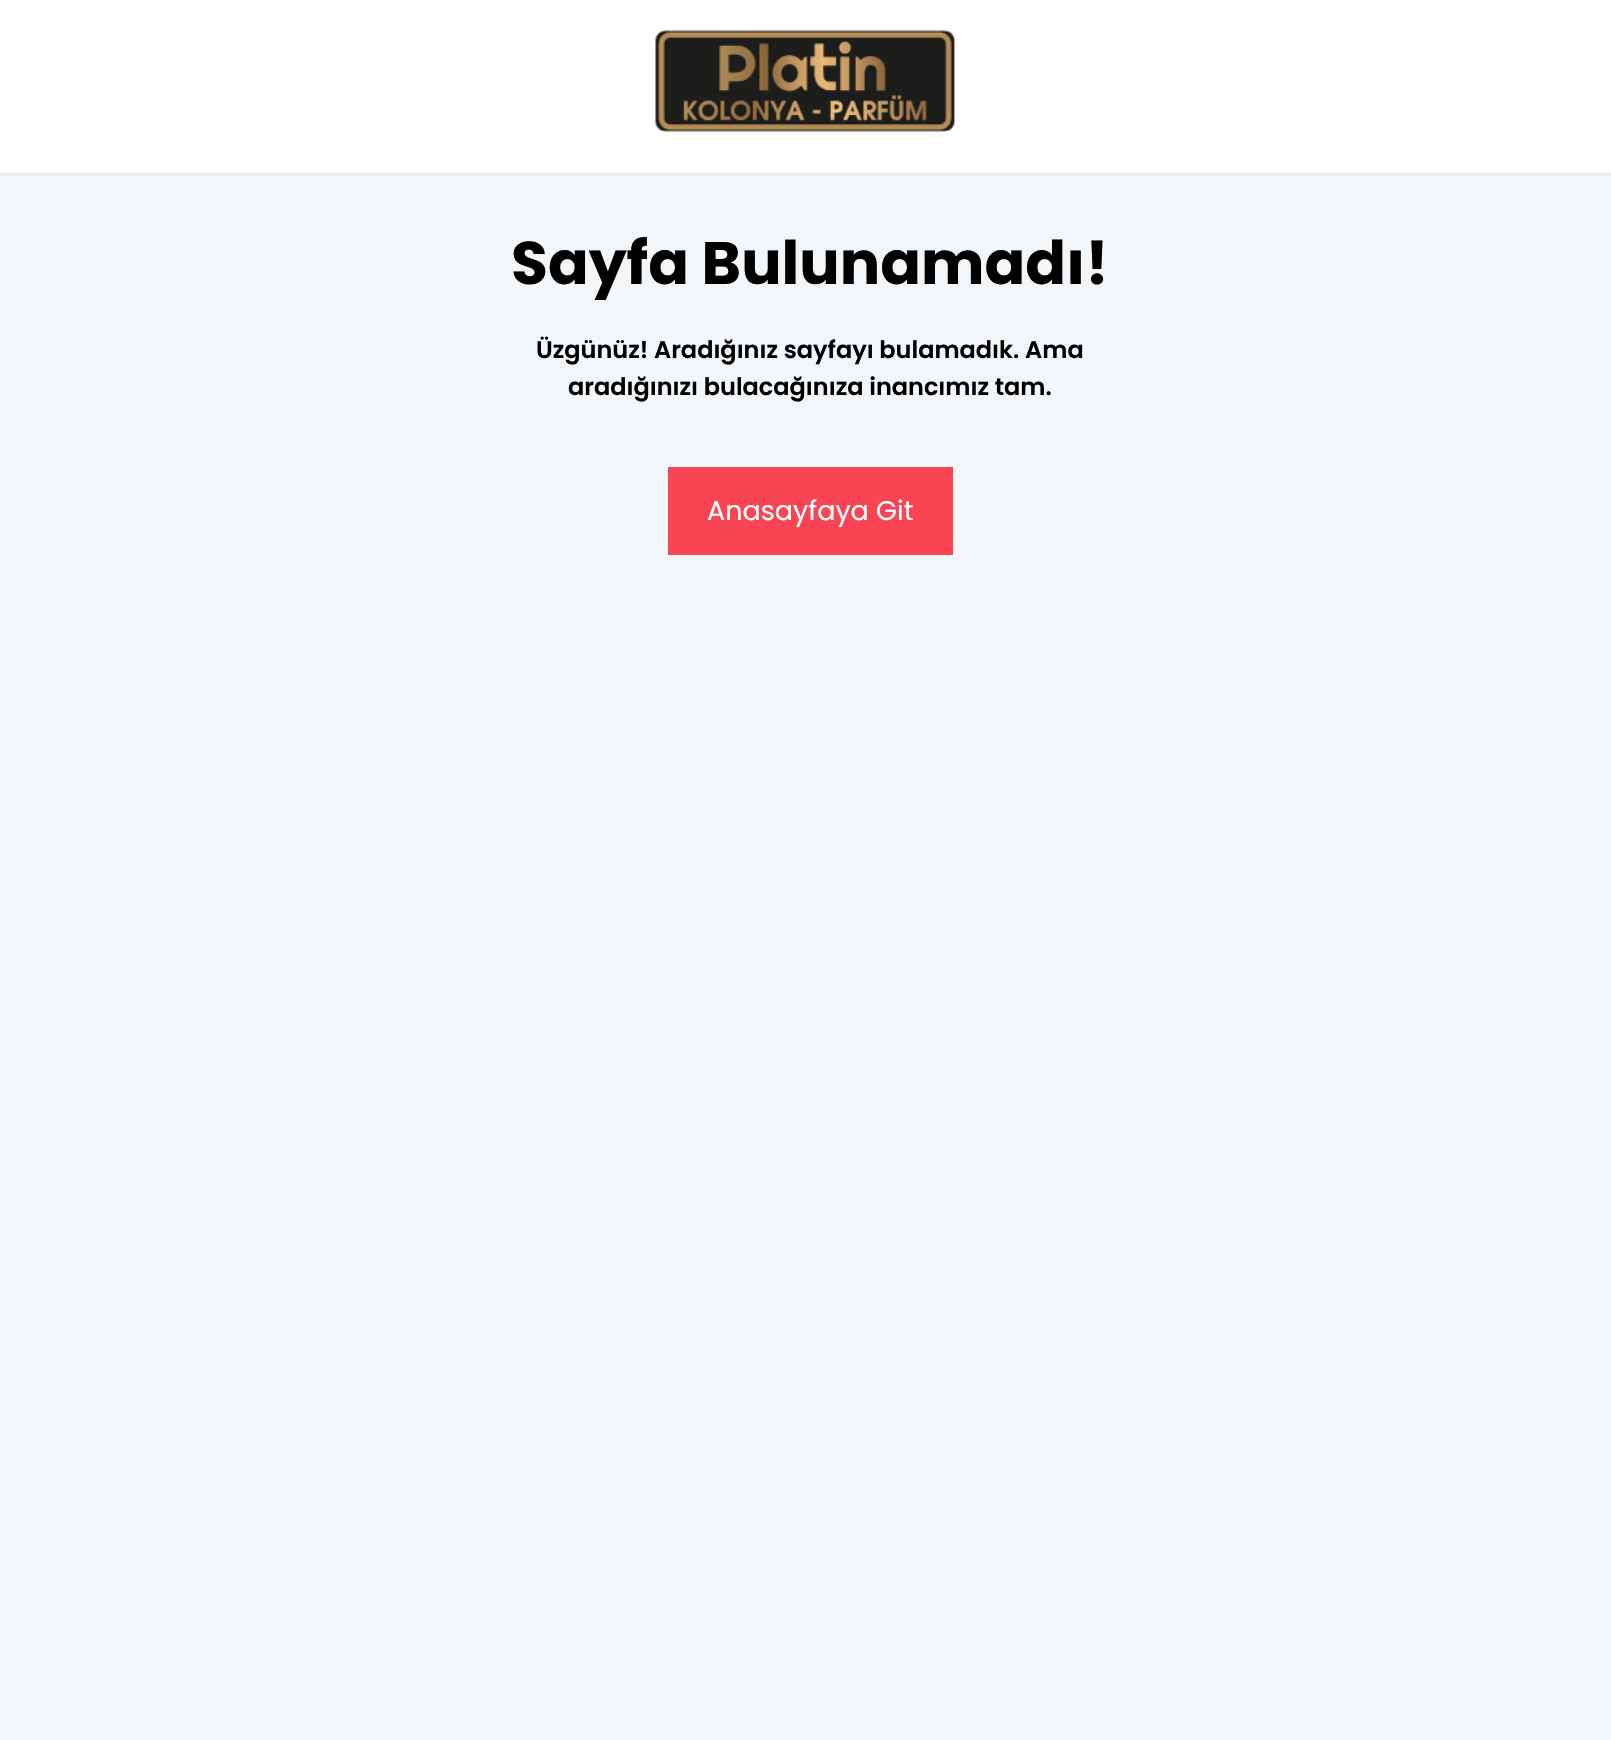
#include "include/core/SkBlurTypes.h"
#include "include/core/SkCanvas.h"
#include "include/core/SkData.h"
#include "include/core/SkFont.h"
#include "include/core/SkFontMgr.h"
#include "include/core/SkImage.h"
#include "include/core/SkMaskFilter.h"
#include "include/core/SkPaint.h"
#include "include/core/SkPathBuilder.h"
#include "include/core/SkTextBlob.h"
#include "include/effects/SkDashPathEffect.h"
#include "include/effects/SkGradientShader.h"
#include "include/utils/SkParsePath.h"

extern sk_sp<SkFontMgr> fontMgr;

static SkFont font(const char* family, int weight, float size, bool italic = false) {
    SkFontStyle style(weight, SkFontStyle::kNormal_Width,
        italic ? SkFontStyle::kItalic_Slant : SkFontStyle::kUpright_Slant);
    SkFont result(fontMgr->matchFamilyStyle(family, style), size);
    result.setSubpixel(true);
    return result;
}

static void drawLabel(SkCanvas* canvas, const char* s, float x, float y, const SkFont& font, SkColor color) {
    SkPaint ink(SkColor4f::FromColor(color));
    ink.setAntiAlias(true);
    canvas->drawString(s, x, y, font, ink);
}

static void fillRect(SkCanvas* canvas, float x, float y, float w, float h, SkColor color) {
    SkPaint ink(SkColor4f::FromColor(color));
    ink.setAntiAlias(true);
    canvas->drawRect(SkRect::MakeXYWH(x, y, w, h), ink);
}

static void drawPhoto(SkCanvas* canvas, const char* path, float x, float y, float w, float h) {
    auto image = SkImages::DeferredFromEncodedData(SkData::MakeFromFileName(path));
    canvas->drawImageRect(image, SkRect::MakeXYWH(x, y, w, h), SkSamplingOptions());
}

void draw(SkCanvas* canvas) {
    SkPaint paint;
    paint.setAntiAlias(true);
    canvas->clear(0xFFF3F6F9);
    fillRect(canvas, 0, 0, 1611, 173, 0xFFFFFFFF);
    fillRect(canvas, 0, 173, 1611, 2, 0xFFEBEBEB);
    drawPhoto(canvas, "assets/img1.png", 655, 30, 301, 102);
    SkFont font1 = font("Poppins", 700, 60);
    drawLabel(canvas, "Sayfa Bulunamadı!", 511, 284, font1, 0xFF000000);
    SkFont font2 = font("Poppins", 600, 24);
    drawLabel(canvas, "Üzgünüz! Aradığınız sayfayı bulamadık. Ama", 536, 358, font2, 0xFF000000);
    drawLabel(canvas, "aradığınızı bulacağınıza inancımız tam.", 568, 395, font2, 0xFF000000);
    fillRect(canvas, 668, 467, 285, 88, 0xFFF94453);
    SkFont font3 = font("Poppins", 400, 27);
    drawLabel(canvas, "Anasayfaya Git", 707, 520, font3, 0xFFFFFFFF);
}
